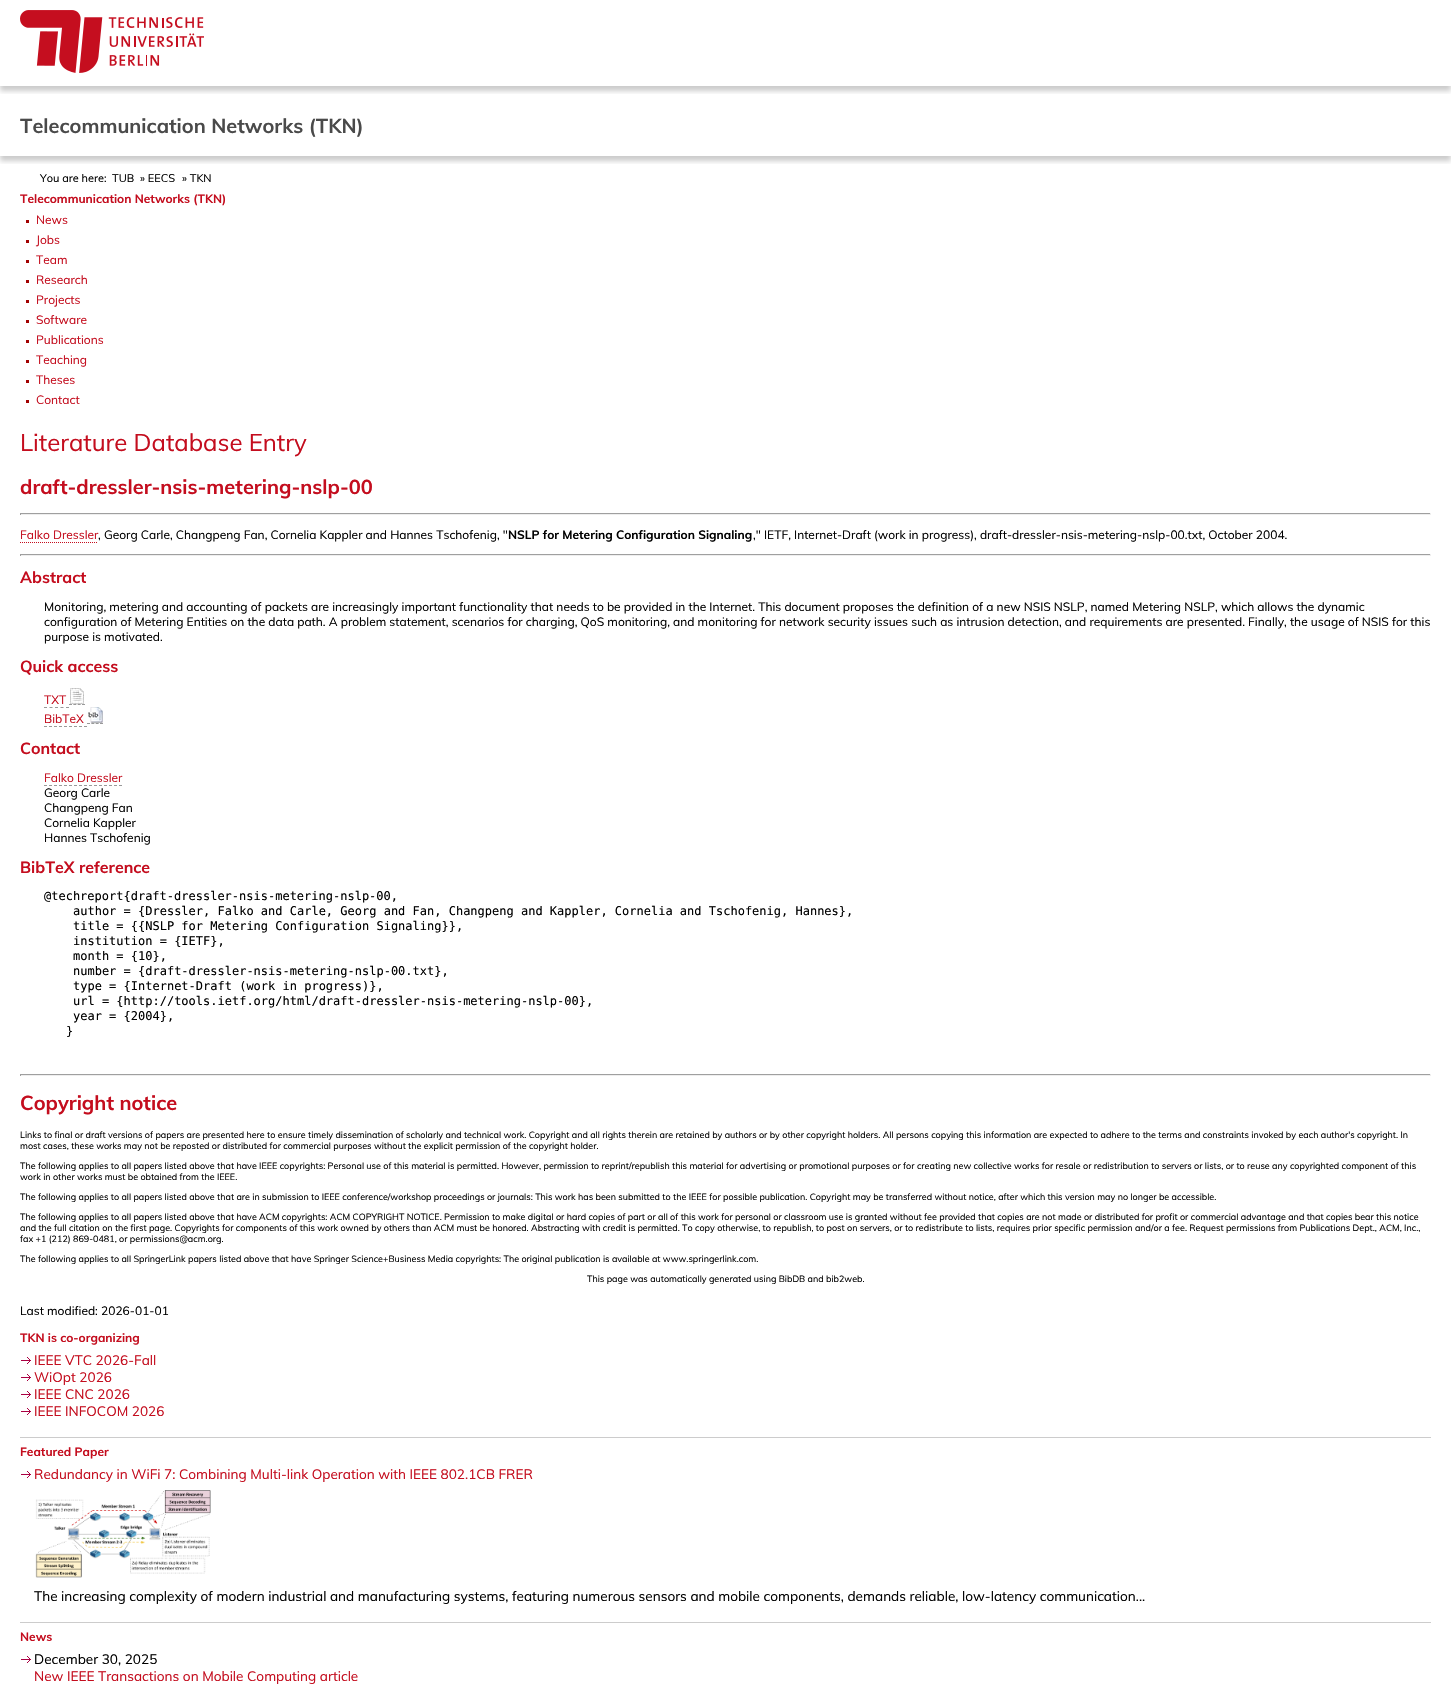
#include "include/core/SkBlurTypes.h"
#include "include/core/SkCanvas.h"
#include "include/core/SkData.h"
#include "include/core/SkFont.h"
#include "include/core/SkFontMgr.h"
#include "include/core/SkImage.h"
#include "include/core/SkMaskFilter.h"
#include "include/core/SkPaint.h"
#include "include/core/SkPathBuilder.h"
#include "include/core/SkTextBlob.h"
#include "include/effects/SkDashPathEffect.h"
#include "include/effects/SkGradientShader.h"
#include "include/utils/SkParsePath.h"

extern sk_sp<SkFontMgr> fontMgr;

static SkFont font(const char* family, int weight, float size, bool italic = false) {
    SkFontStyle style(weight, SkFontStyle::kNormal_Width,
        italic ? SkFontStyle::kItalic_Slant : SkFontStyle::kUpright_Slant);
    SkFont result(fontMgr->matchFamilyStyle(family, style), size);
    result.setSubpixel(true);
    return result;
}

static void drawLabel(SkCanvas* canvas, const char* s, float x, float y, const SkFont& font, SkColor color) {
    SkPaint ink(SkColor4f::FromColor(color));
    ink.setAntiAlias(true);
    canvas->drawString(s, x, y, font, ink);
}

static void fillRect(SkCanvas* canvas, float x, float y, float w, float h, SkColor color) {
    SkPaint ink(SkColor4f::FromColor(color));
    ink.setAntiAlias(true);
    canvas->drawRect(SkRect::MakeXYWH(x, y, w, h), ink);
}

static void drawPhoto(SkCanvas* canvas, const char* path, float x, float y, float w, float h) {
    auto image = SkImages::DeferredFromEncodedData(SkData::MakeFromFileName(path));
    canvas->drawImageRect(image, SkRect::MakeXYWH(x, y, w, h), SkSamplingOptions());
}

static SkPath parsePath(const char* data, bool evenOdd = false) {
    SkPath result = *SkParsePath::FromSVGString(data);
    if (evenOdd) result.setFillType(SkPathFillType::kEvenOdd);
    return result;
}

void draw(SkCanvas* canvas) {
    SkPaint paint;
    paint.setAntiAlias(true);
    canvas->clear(0xFFFFFFFF);
    canvas->save();
    canvas->clipRect(SkRect::MakeXYWH(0, 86, 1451, 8));
    paint.setColor(0x33000000);
    paint.setMaskFilter(SkMaskFilter::MakeBlur(kNormal_SkBlurStyle, 2.5f));
    canvas->drawRect(SkRect::MakeXYWH(0, 5, 1451, 86), paint);
    paint.setMaskFilter(nullptr);
    canvas->restore();
    drawPhoto(canvas, "assets/img1.png", 20, 10, 184, 63);
    canvas->save();
    canvas->clipRect(SkRect::MakeXYWH(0, 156, 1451, 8));
    paint.setMaskFilter(SkMaskFilter::MakeBlur(kNormal_SkBlurStyle, 2.5f));
    canvas->drawRect(SkRect::MakeXYWH(0, 101, 1451, 60), paint);
    paint.setMaskFilter(nullptr);
    canvas->restore();
    SkFont font1 = font("Muli", 700, 20);
    drawLabel(canvas, "Telecommunication Networks (TKN)", 20, 133, font1, 0xFF4A4A4A);
    SkFont font2 = font("Muli", 400, 11);
    drawLabel(canvas, "You are here:", 40, 182, font2, 0xFF000000);
    drawLabel(canvas, "TUB", 112, 182, font2, 0xFF000000);
    drawLabel(canvas, "» EECS", 140, 182, font2, 0xFF000000);
    drawLabel(canvas, "» TKN", 182, 182, font2, 0xFF000000);
    SkFont font3 = font("Muli", 700, 12);
    drawLabel(canvas, "Telecommunication Networks (TKN)", 20, 203, font3, 0xFFC40D1E);
    fillRect(canvas, 26, 220, 3, 3, 0xFFA20000);
    SkFont font4 = font("Muli", 400, 12);
    drawLabel(canvas, "News", 36, 224, font4, 0xFFC40D1E);
    fillRect(canvas, 26, 240, 3, 3, 0xFFA20000);
    drawLabel(canvas, "Jobs", 36, 244, font4, 0xFFC40D1E);
    fillRect(canvas, 26, 260, 3, 3, 0xFFA20000);
    drawLabel(canvas, "Team", 36, 264, font4, 0xFFC40D1E);
    fillRect(canvas, 26, 280, 3, 3, 0xFFA20000);
    drawLabel(canvas, "Research", 36, 284, font4, 0xFFC40D1E);
    fillRect(canvas, 26, 300, 3, 3, 0xFFA20000);
    drawLabel(canvas, "Projects", 36, 304, font4, 0xFFC40D1E);
    fillRect(canvas, 26, 320, 3, 3, 0xFFA20000);
    drawLabel(canvas, "Software", 36, 324, font4, 0xFFC40D1E);
    fillRect(canvas, 26, 340, 3, 3, 0xFFA20000);
    drawLabel(canvas, "Publications", 36, 344, font4, 0xFFC40D1E);
    fillRect(canvas, 26, 360, 3, 3, 0xFFA20000);
    drawLabel(canvas, "Teaching", 36, 364, font4, 0xFFC40D1E);
    fillRect(canvas, 26, 380, 3, 3, 0xFFA20000);
    drawLabel(canvas, "Theses", 36, 384, font4, 0xFFC40D1E);
    fillRect(canvas, 26, 400, 3, 3, 0xFFA20000);
    drawLabel(canvas, "Contact", 36, 404, font4, 0xFFC40D1E);
    SkFont font5 = font("Muli", 400, 24);
    drawLabel(canvas, "Literature Database Entry", 20, 451, font5, 0xFFC40D1E);
    drawLabel(canvas, "draft-dressler-nsis-metering-nslp-00", 20, 494, font1, 0xFFC40D1E);
    fillRect(canvas, 20, 513, 1411, 1, 0xFF9F9F9F);
    fillRect(canvas, 1430, 513, 1, 2, 0xFFEEEEEE);
    fillRect(canvas, 20, 514, 1411, 1, 0xFFEEEEEE);
    fillRect(canvas, 20, 513, 1, 2, 0xFF9F9F9F);
    drawLabel(canvas, "Falko Dressler", 20, 539, font4, 0xFFC40D1E);
    paint.setStroke(true);
    paint.setStrokeWidth(1);
    paint.setColor(0xFFC40D1E);
    paint.setPathEffect(SkDashPathEffect::Make({{1, 1}}, 0));
    canvas->drawPath(parsePath("M20 542.5H98"), paint);
    paint.setPathEffect(nullptr);
    drawLabel(canvas, ", Georg Carle, Changpeng Fan, Cornelia Kappler and Hannes Tschofenig, \"", 98, 539, font4, 0xFF000000);
    drawLabel(canvas, "NSLP for Metering Configuration Signaling", 508, 539, font3, 0xFF000000);
    drawLabel(canvas, ",\" IETF, Internet-Draft (work in progress), draft-dressler-nsis-metering-nslp-00.txt, October 2004.", 753, 539, font4, 0xFF000000);
    fillRect(canvas, 20, 554, 1411, 1, 0xFF9F9F9F);
    fillRect(canvas, 1430, 554, 1, 2, 0xFFEEEEEE);
    fillRect(canvas, 20, 555, 1411, 1, 0xFFEEEEEE);
    fillRect(canvas, 20, 554, 1, 2, 0xFF9F9F9F);
    SkFont font6 = font("Muli", 700, 16);
    drawLabel(canvas, "Abstract", 20, 583, font6, 0xFFC40D1E);
    drawLabel(canvas, "Monitoring, metering and accounting of packets are increasingly important functionality that needs to be provided in the Internet. This document proposes the definition of a new NSIS NSLP, named Metering NSLP, which allows the dynamic", 44, 611, font4, 0xFF000000);
    drawLabel(canvas, "configuration of Metering Entities on the data path. A problem statement, scenarios for charging, QoS monitoring, and monitoring for network security issues such as intrusion detection, and requirements are presented. Finally, the usage of NSIS for this", 44, 626, font4, 0xFF000000);
    drawLabel(canvas, "purpose is motivated.", 44, 641, font4, 0xFF000000);
    drawLabel(canvas, "Quick access", 20, 672, font6, 0xFFC40D1E);
    drawLabel(canvas, "TXT", 44, 704, font4, 0xFFC40D1E);
    paint.setColor(0xFF999999);
    paint.setPathEffect(SkDashPathEffect::Make({{3, 2.5f}}, 0));
    canvas->drawPath(parsePath("M44 707.5H69"), paint);
    paint.setPathEffect(nullptr);
    paint.setPathEffect(SkDashPathEffect::Make({{3, 1.33f}}, 0));
    canvas->drawPath(parsePath("M69 704.5H85"), paint);
    paint.setPathEffect(nullptr);
    drawPhoto(canvas, "assets/img2.png", 70, 688, 14, 16);
    drawLabel(canvas, "BibTeX", 44, 723, font4, 0xFFC40D1E);
    paint.setPathEffect(SkDashPathEffect::Make({{3, 2}}, 0));
    canvas->drawPath(parsePath("M44 726.5H87"), paint);
    paint.setPathEffect(nullptr);
    paint.setPathEffect(SkDashPathEffect::Make({{3, 1.33f}}, 0));
    canvas->drawPath(parsePath("M87 723.5H103"), paint);
    paint.setPathEffect(nullptr);
    drawPhoto(canvas, "assets/img3.png", 88, 707, 15, 16);
    drawLabel(canvas, "Contact", 20, 754, font6, 0xFFC40D1E);
    drawLabel(canvas, "Falko Dressler", 44, 782, font4, 0xFFC40D1E);
    paint.setPathEffect(SkDashPathEffect::Make({{3, 2}}, 0));
    canvas->drawPath(parsePath("M44 785.5H122"), paint);
    paint.setPathEffect(nullptr);
    drawLabel(canvas, "Georg Carle", 44, 797, font4, 0xFF000000);
    drawLabel(canvas, "Changpeng Fan", 44, 812, font4, 0xFF000000);
    drawLabel(canvas, "Cornelia Kappler", 44, 827, font4, 0xFF000000);
    drawLabel(canvas, "Hannes Tschofenig", 44, 842, font4, 0xFF000000);
    drawLabel(canvas, "BibTeX reference", 20, 873, font6, 0xFFC40D1E);
    SkFont font7 = font("DejaVu Sans Mono", 400, 12);
    drawLabel(canvas, "@techreport{draft-dressler-nsis-metering-nslp-00,", 44, 900, font7, 0xFF000000);
    drawLabel(canvas, "author = {Dressler, Falko and Carle, Georg and Fan, Changpeng and Kappler, Cornelia and Tschofenig, Hannes},", 73, 915, font7, 0xFF000000);
    drawLabel(canvas, "title = {{NSLP for Metering Configuration Signaling}},", 73, 930, font7, 0xFF000000);
    drawLabel(canvas, "institution = {IETF},", 73, 945, font7, 0xFF000000);
    drawLabel(canvas, "month = {10},", 73, 960, font7, 0xFF000000);
    drawLabel(canvas, "number = {draft-dressler-nsis-metering-nslp-00.txt},", 73, 975, font7, 0xFF000000);
    drawLabel(canvas, "type = {Internet-Draft (work in progress)},", 73, 990, font7, 0xFF000000);
    drawLabel(canvas, "url = {http://tools.ietf.org/html/draft-dressler-nsis-metering-nslp-00},", 73, 1005, font7, 0xFF000000);
    drawLabel(canvas, "year = {2004},", 73, 1020, font7, 0xFF000000);
    drawLabel(canvas, "}", 66, 1035, font7, 0xFF000000);
    fillRect(canvas, 20, 1074, 1411, 1, 0xFF9F9F9F);
    fillRect(canvas, 1430, 1074, 1, 2, 0xFFEEEEEE);
    fillRect(canvas, 20, 1075, 1411, 1, 0xFFEEEEEE);
    fillRect(canvas, 20, 1074, 1, 2, 0xFF9F9F9F);
    drawLabel(canvas, "Copyright notice", 20, 1110, font1, 0xFFC40D1E);
    SkFont font8 = font("Muli", 400, 9);
    drawLabel(canvas, "Links to final or draft versions of papers are presented here to ensure timely dissemination of scholarly and technical work. Copyright and all rights therein are retained by authors or by other copyright holders. All persons copying this information are expected to adhere to the terms and constraints invoked by each author's copyright. In", 20, 1138, font8, 0xFF000000);
    drawLabel(canvas, "most cases, these works may not be reposted or distributed for commercial purposes without the explicit permission of the copyright holder.", 20, 1149, font8, 0xFF000000);
    drawLabel(canvas, "The following applies to all papers listed above that have IEEE copyrights: Personal use of this material is permitted. However, permission to reprint/republish this material for advertising or promotional purposes or for creating new collective works for resale or redistribution to servers or lists, or to reuse any copyrighted component of this", 20, 1169, font8, 0xFF000000);
    drawLabel(canvas, "work in other works must be obtained from the IEEE.", 20, 1180, font8, 0xFF000000);
    drawLabel(canvas, "The following applies to all papers listed above that are in submission to IEEE conference/workshop proceedings or journals: This work has been submitted to the IEEE for possible publication. Copyright may be transferred without notice, after which this version may no longer be accessible.", 20, 1200, font8, 0xFF000000);
    drawLabel(canvas, "The following applies to all papers listed above that have ACM copyrights: ACM COPYRIGHT NOTICE. Permission to make digital or hard copies of part or all of this work for personal or classroom use is granted without fee provided that copies are not made or distributed for profit or commercial advantage and that copies bear this notice", 20, 1220, font8, 0xFF000000);
    drawLabel(canvas, "and the full citation on the first page. Copyrights for components of this work owned by others than ACM must be honored. Abstracting with credit is permitted. To copy otherwise, to republish, to post on servers, or to redistribute to lists, requires prior specific permission and/or a fee. Request permissions from Publications Dept., ACM, Inc.,", 20, 1231, font8, 0xFF000000);
    drawLabel(canvas, "fax +1 (212) 869-0481, or permissions@acm.org.", 20, 1242, font8, 0xFF000000);
    drawLabel(canvas, "The following applies to all SpringerLink papers listed above that have Springer Science+Business Media copyrights: The original publication is available at www.springerlink.com.", 20, 1262, font8, 0xFF000000);
    drawLabel(canvas, "This page was automatically generated using BibDB and bib2web.", 587, 1282, font8, 0xFF000000);
    drawLabel(canvas, "Last modified: 2026-01-01", 20, 1315, font4, 0xFF000000);
    drawLabel(canvas, "TKN is co-organizing", 20, 1342, font3, 0xFFC40D1E);
    drawPhoto(canvas, "assets/img4.png", 21, 1357, 10, 7);
    SkFont font9 = font("Muli", 400, 13.6f);
    drawLabel(canvas, "IEEE VTC 2026-Fall", 34, 1365, font9, 0xFFC40D1E);
    drawPhoto(canvas, "assets/img4.png", 21, 1374, 10, 7);
    drawLabel(canvas, "WiOpt 2026", 34, 1382, font9, 0xFFC40D1E);
    drawPhoto(canvas, "assets/img4.png", 21, 1391, 10, 7);
    drawLabel(canvas, "IEEE CNC 2026", 34, 1399, font9, 0xFFC40D1E);
    drawPhoto(canvas, "assets/img4.png", 21, 1408, 10, 7);
    drawLabel(canvas, "IEEE INFOCOM 2026", 34, 1416, font9, 0xFFC40D1E);
    fillRect(canvas, 20, 1437, 1411, 1, 0xFFCCCCCC);
    drawLabel(canvas, "Featured Paper", 20, 1456, font3, 0xFFC40D1E);
    drawPhoto(canvas, "assets/img4.png", 21, 1471, 10, 7);
    drawLabel(canvas, "Redundancy in WiFi 7: Combining Multi-link Operation with IEEE 802.1CB FRER", 34, 1479, font9, 0xFFC40D1E);
    drawPhoto(canvas, "assets/img5.png", 35, 1490, 176, 88);
    drawLabel(canvas, "The increasing complexity of modern industrial and manufacturing systems, featuring numerous sensors and mobile components, demands reliable, low-latency communication...", 34, 1601, font9, 0xFF000000);
    fillRect(canvas, 20, 1622, 1411, 1, 0xFFCCCCCC);
    drawLabel(canvas, "News", 20, 1641, font3, 0xFFC40D1E);
    drawPhoto(canvas, "assets/img4.png", 21, 1656, 10, 7);
    drawLabel(canvas, "December 30, 2025", 34, 1664, font9, 0xFF000000);
    drawLabel(canvas, "New IEEE Transactions on Mobile Computing article", 34, 1681, font9, 0xFFC40D1E);
}
